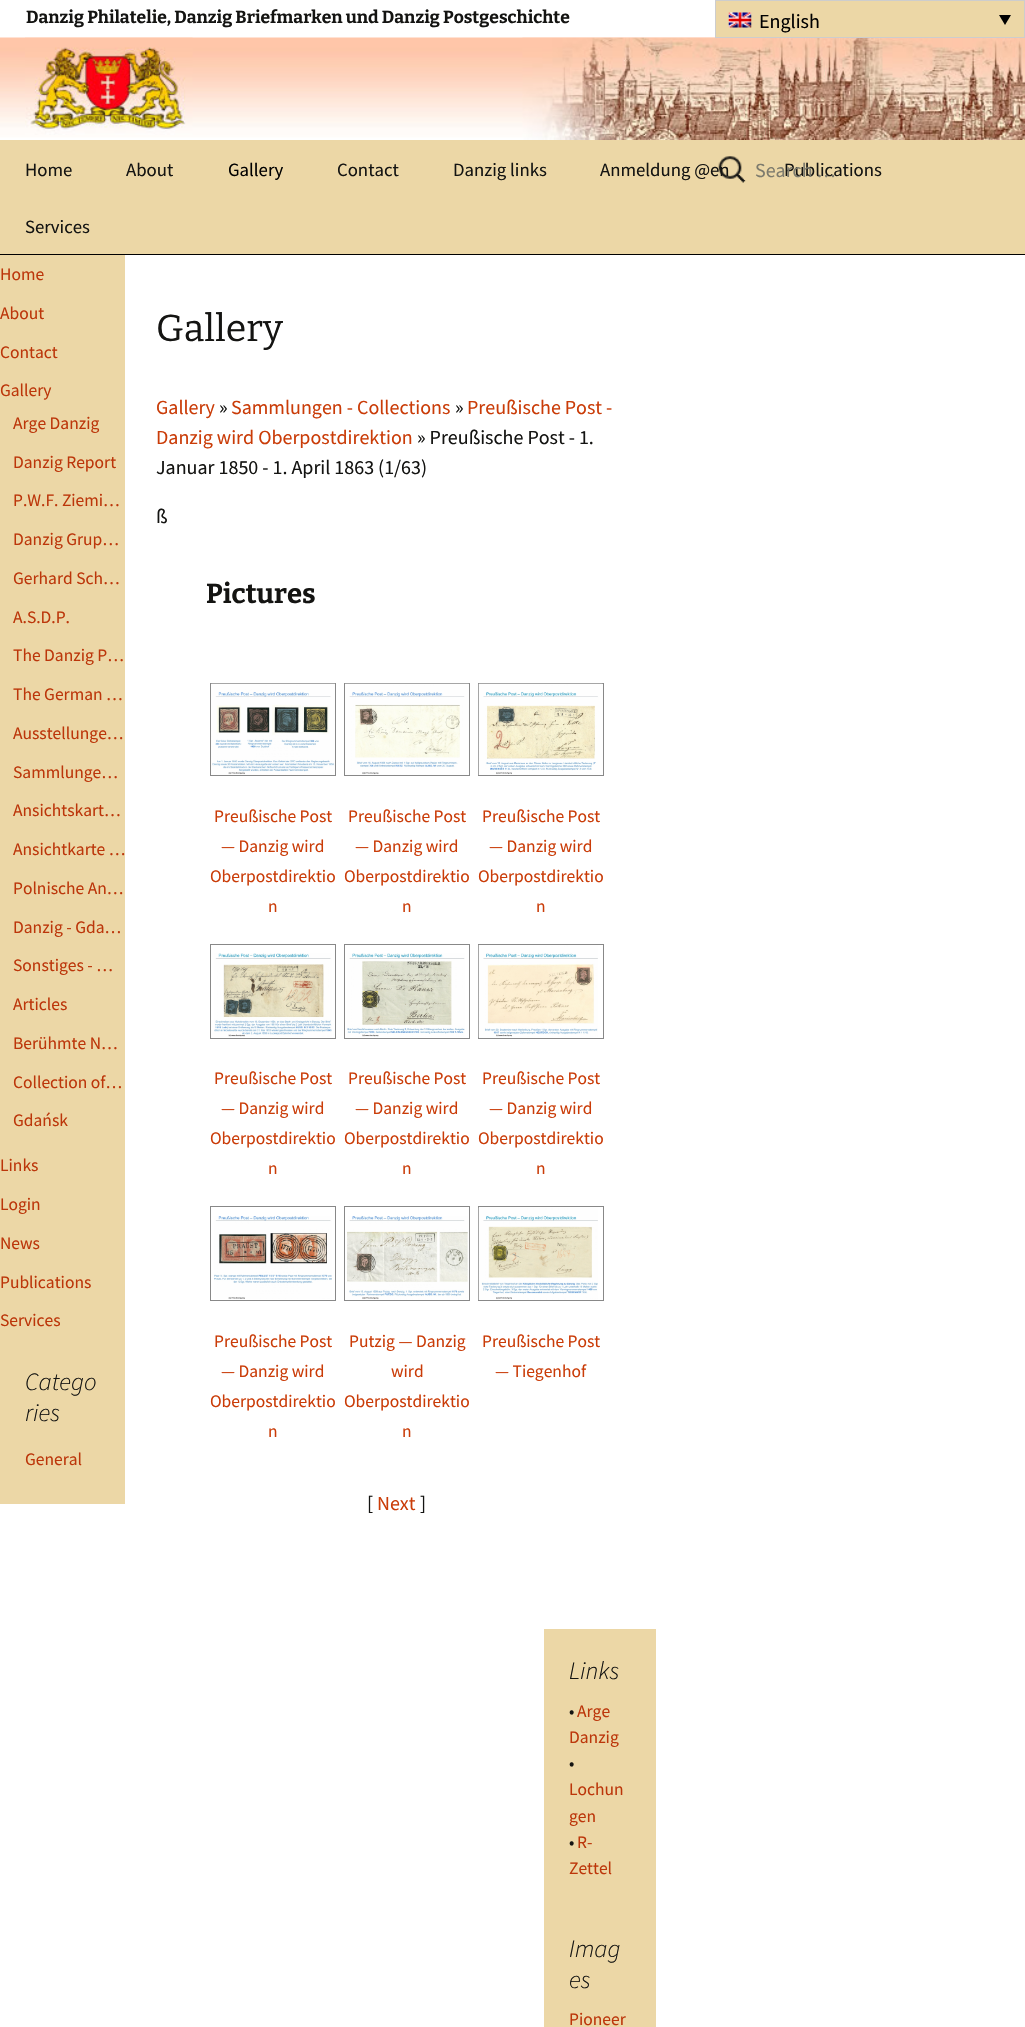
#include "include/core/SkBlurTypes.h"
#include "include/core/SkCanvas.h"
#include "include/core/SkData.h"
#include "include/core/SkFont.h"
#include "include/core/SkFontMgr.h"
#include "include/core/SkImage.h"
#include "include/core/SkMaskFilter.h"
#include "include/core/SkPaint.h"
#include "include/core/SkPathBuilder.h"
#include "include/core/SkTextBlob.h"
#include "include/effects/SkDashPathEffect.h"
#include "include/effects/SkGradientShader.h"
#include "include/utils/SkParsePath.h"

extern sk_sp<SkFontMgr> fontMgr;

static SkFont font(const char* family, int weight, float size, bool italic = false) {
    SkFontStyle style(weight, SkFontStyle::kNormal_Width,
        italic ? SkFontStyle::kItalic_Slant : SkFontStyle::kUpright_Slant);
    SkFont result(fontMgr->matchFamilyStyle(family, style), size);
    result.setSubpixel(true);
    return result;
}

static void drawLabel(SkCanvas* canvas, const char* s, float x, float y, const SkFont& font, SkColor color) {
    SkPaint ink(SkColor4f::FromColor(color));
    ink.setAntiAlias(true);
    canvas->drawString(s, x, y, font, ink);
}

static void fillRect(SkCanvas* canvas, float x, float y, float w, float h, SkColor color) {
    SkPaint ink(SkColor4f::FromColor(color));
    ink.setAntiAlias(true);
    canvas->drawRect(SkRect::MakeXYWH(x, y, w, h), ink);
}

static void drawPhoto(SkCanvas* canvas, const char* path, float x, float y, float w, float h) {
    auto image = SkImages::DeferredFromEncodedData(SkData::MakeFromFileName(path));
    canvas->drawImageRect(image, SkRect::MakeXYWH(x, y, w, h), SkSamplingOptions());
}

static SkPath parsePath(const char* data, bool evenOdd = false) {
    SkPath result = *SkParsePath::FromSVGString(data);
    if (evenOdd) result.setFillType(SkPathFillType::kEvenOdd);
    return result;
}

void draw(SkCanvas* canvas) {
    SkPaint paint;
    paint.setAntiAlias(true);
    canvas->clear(0xFFFFFFFF);
    fillRect(canvas, 0, 140, 1025, 114, 0xFFECD7A6);
    fillRect(canvas, 0, 254, 1025, 1, 0xFF000000);
    SkFont font1 = font("Bitter", 700, 17.5f);
    drawLabel(canvas, "Danzig Philatelie, Danzig Briefmarken und Danzig Postgeschichte", 26, 23, font1, 0xFF141412);
    drawPhoto(canvas, "assets/img2.png", 0, 37, 715, 103);
    drawPhoto(canvas, "assets/img4.png", 522, 37, 503, 103);
    paint.setColor(0xFFECD7A6);
    canvas->drawRect(SkRect::MakeXYWH(715.5f, 0.5f, 309, 37), paint);
    paint.setStroke(true);
    paint.setStrokeWidth(1);
    paint.setColor(0xFFCDCDCD);
    canvas->drawRect(SkRect::MakeXYWH(715.5f, 0.5f, 309, 37), paint);
    drawPhoto(canvas, "assets/img1.png", 728, 12, 24, 16);
    SkFont font2 = font("Source Sans Pro", 400, 20);
    drawLabel(canvas, "English", 759, 28, font2, 0xFF000000);
    paint.setStroke(false);
    paint.setColor(0xFF000000);
    canvas->drawPath(parsePath("M999 15H1011L1005 25Z"), paint);
    drawPhoto(canvas, "assets/img3.png", 25, 37, 168, 98);
    SkFont font3 = font("Source Sans Pro", 400, 18.75f);
    drawLabel(canvas, "Home", 25, 176, font3, 0xFF141412);
    drawLabel(canvas, "About", 126, 176, font3, 0xFF141412);
    drawLabel(canvas, "Gallery", 228, 176, font3, 0xFF000000);
    drawLabel(canvas, "Contact", 337, 176, font3, 0xFF141412);
    drawLabel(canvas, "Danzig links", 453, 176, font3, 0xFF141412);
    drawLabel(canvas, "Anmeldung @en", 600, 176, font3, 0xFF141412);
    drawLabel(canvas, "Publications", 784, 176, font3, 0xFF141412);
    drawLabel(canvas, "Services", 25, 233, font3, 0xFF141412);
    drawPhoto(canvas, "assets/img5.png", 718, 156, 28, 27);
    drawLabel(canvas, "Search …", 755, 177, font2, 0xFF7D7B6D);
    fillRect(canvas, 0, 255, 125, 1249, 0xFFECD7A6);
    SkFont font4 = font("Source Sans Pro", 400, 17.5f);
    drawLabel(canvas, "Home", 0, 280, font4, 0xFFBC360A);
    drawLabel(canvas, "About", 0, 319, font4, 0xFFBC360A);
    drawLabel(canvas, "Contact", 0, 358, font4, 0xFFBC360A);
    drawLabel(canvas, "Gallery", 0, 396, font4, 0xFFBC360A);
    drawLabel(canvas, "Arge Danzig", 13, 429, font4, 0xFFBC360A);
    drawLabel(canvas, "Danzig Report", 13, 468, font4, 0xFFBC360A);
    drawLabel(canvas, "P.W.F. Ziemi…", 13, 506, font4, 0xFFBC360A);
    drawLabel(canvas, "Danzig Grup…", 13, 545, font4, 0xFFBC360A);
    drawLabel(canvas, "Gerhard Sch…", 13, 584, font4, 0xFFBC360A);
    drawLabel(canvas, "A.S.D.P.", 13, 623, font4, 0xFFBC360A);
    drawLabel(canvas, "The Danzig P…", 13, 661, font4, 0xFFBC360A);
    drawLabel(canvas, "The German …", 13, 700, font4, 0xFFBC360A);
    drawLabel(canvas, "Ausstellunge…", 13, 739, font4, 0xFFBC360A);
    drawLabel(canvas, "Sammlunge…", 13, 778, font4, 0xFFBC360A);
    drawLabel(canvas, "Ansichtskart…", 13, 816, font4, 0xFFBC360A);
    drawLabel(canvas, "Ansichtkarte …", 13, 855, font4, 0xFFBC360A);
    drawLabel(canvas, "Polnische An…", 13, 894, font4, 0xFFBC360A);
    drawLabel(canvas, "Danzig - Gda…", 13, 933, font4, 0xFFBC360A);
    drawLabel(canvas, "Sonstiges - …", 13, 971, font4, 0xFFBC360A);
    drawLabel(canvas, "Articles", 13, 1010, font4, 0xFFBC360A);
    drawLabel(canvas, "Berühmte N…", 13, 1049, font4, 0xFFBC360A);
    drawLabel(canvas, "Collection of…", 13, 1088, font4, 0xFFBC360A);
    drawLabel(canvas, "Gdańsk", 13, 1126, font4, 0xFFBC360A);
    drawLabel(canvas, "Links", 0, 1171, font4, 0xFFBC360A);
    drawLabel(canvas, "Login", 0, 1210, font4, 0xFFBC360A);
    drawLabel(canvas, "News", 0, 1249, font4, 0xFFBC360A);
    drawLabel(canvas, "Publications", 0, 1288, font4, 0xFFBC360A);
    drawLabel(canvas, "Services", 0, 1326, font4, 0xFFBC360A);
    SkFont font5 = font("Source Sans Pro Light", 300, 25, true);
    drawLabel(canvas, "Catego", 25, 1390, font5, 0xFF141412);
    drawLabel(canvas, "ries", 25, 1421, font5, 0xFF141412);
    drawLabel(canvas, "General", 25, 1465, font4, 0xFFBC360A);
    SkFont font6 = font("Bitter", 400, 37.5f);
    drawLabel(canvas, "Gallery", 156, 341, font6, 0xFF141412);
    drawLabel(canvas, "Gallery", 156, 414, font2, 0xFFCA3C08);
    drawLabel(canvas, "»", 219, 414, font2, 0xFF141412);
    drawLabel(canvas, "Sammlungen - Collections", 231, 414, font2, 0xFFCA3C08);
    drawLabel(canvas, "»", 455, 414, font2, 0xFF141412);
    drawLabel(canvas, "Preußische Post -", 467, 414, font2, 0xFFCA3C08);
    drawLabel(canvas, "Danzig wird Oberpostdirektion", 156, 444, font2, 0xFFCA3C08);
    drawLabel(canvas, "» Preußische Post - 1.", 417, 444, font2, 0xFF141412);
    drawLabel(canvas, "Januar 1850 - 1. April 1863 (1/63)", 156, 474, font2, 0xFF141412);
    drawLabel(canvas, "ß", 156, 523, font2, 0xFF141412);
    SkFont font7 = font("Bitter", 700, 27.5f);
    drawLabel(canvas, "Pictures", 206, 603, font7, 0xFF141412);
    paint.setStroke(true);
    paint.setColor(0xFF888888);
    canvas->drawRect(SkRect::MakeXYWH(210.5f, 683.5f, 125, 92), paint);
    drawPhoto(canvas, "assets/img6.png", 211, 683, 124, 92);
    drawLabel(canvas, "Preußische Post", 214, 822, font4, 0xFFCA3C08);
    drawLabel(canvas, "— Danzig wird", 221, 852, font4, 0xFFCA3C08);
    drawLabel(canvas, "Oberpostdirektio", 210, 882, font4, 0xFFCA3C08);
    drawLabel(canvas, "n", 268, 912, font4, 0xFFCA3C08);
    canvas->drawRect(SkRect::MakeXYWH(344.5f, 683.5f, 125, 92), paint);
    drawPhoto(canvas, "assets/img7.png", 345, 683, 124, 92);
    drawLabel(canvas, "Preußische Post", 348, 822, font4, 0xFFCA3C08);
    drawLabel(canvas, "— Danzig wird", 355, 852, font4, 0xFFCA3C08);
    drawLabel(canvas, "Oberpostdirektio", 344, 882, font4, 0xFFCA3C08);
    drawLabel(canvas, "n", 402, 912, font4, 0xFFCA3C08);
    canvas->drawRect(SkRect::MakeXYWH(478.5f, 683.5f, 125, 92), paint);
    drawPhoto(canvas, "assets/img8.png", 478, 683, 125, 92);
    drawLabel(canvas, "Preußische Post", 482, 822, font4, 0xFFCA3C08);
    drawLabel(canvas, "— Danzig wird", 489, 852, font4, 0xFFCA3C08);
    drawLabel(canvas, "Oberpostdirektio", 478, 882, font4, 0xFFCA3C08);
    drawLabel(canvas, "n", 536, 912, font4, 0xFFCA3C08);
    canvas->drawRect(SkRect::MakeXYWH(210.5f, 944.5f, 125, 94), paint);
    drawPhoto(canvas, "assets/img9.png", 214, 953, 118, 84);
    drawLabel(canvas, "Preußische Post", 214, 1084, font4, 0xFFCA3C08);
    drawLabel(canvas, "— Danzig wird", 221, 1114, font4, 0xFFCA3C08);
    drawLabel(canvas, "Oberpostdirektio", 210, 1144, font4, 0xFFCA3C08);
    drawLabel(canvas, "n", 268, 1174, font4, 0xFFCA3C08);
    canvas->drawRect(SkRect::MakeXYWH(344.5f, 944.5f, 125, 94), paint);
    drawPhoto(canvas, "assets/img10.png", 347, 953, 118, 84);
    drawLabel(canvas, "Preußische Post", 348, 1084, font4, 0xFFCA3C08);
    drawLabel(canvas, "— Danzig wird", 355, 1114, font4, 0xFFCA3C08);
    drawLabel(canvas, "Oberpostdirektio", 344, 1144, font4, 0xFFCA3C08);
    drawLabel(canvas, "n", 402, 1174, font4, 0xFFCA3C08);
    canvas->drawRect(SkRect::MakeXYWH(478.5f, 944.5f, 125, 94), paint);
    drawPhoto(canvas, "assets/img11.png", 478, 945, 120, 93);
    drawLabel(canvas, "Preußische Post", 482, 1084, font4, 0xFFCA3C08);
    drawLabel(canvas, "— Danzig wird", 489, 1114, font4, 0xFFCA3C08);
    drawLabel(canvas, "Oberpostdirektio", 478, 1144, font4, 0xFFCA3C08);
    drawLabel(canvas, "n", 536, 1174, font4, 0xFFCA3C08);
    canvas->drawRect(SkRect::MakeXYWH(210.5f, 1206.5f, 125, 94), paint);
    drawPhoto(canvas, "assets/img12.png", 214, 1216, 118, 83);
    drawLabel(canvas, "Preußische Post", 214, 1347, font4, 0xFFCA3C08);
    drawLabel(canvas, "— Danzig wird", 221, 1377, font4, 0xFFCA3C08);
    drawLabel(canvas, "Oberpostdirektio", 210, 1407, font4, 0xFFCA3C08);
    drawLabel(canvas, "n", 268, 1437, font4, 0xFFCA3C08);
    canvas->drawRect(SkRect::MakeXYWH(344.5f, 1206.5f, 125, 94), paint);
    drawPhoto(canvas, "assets/img13.png", 347, 1216, 121, 84);
    drawLabel(canvas, "Putzig — Danzig", 349, 1347, font4, 0xFFCA3C08);
    drawLabel(canvas, "wird", 391, 1377, font4, 0xFFCA3C08);
    drawLabel(canvas, "Oberpostdirektio", 344, 1407, font4, 0xFFCA3C08);
    drawLabel(canvas, "n", 402, 1437, font4, 0xFFCA3C08);
    canvas->drawRect(SkRect::MakeXYWH(478.5f, 1206.5f, 125, 94), paint);
    drawPhoto(canvas, "assets/img14.png", 478, 1207, 120, 93);
    drawLabel(canvas, "Preußische Post", 482, 1347, font4, 0xFFCA3C08);
    drawLabel(canvas, "— Tiegenhof", 495, 1377, font4, 0xFFCA3C08);
    drawLabel(canvas, "[", 367, 1510, font2, 0xFF141412);
    drawLabel(canvas, "Next", 377, 1510, font2, 0xFFCA3C08);
    drawLabel(canvas, "]", 420, 1510, font2, 0xFF141412);
    fillRect(canvas, 544, 1629, 112, 398, 0xFFECD7A6);
    drawLabel(canvas, "Links", 569, 1679, font5, 0xFF141412);
    drawLabel(canvas, "•", 569, 1717, font4, 0xFF141412);
    drawLabel(canvas, "Arge", 577, 1717, font4, 0xFFBC360A);
    drawLabel(canvas, "Danzig", 569, 1743, font4, 0xFFBC360A);
    drawLabel(canvas, "•", 569, 1769, font4, 0xFF141412);
    drawLabel(canvas, "Lochun", 569, 1795, font4, 0xFFBC360A);
    drawLabel(canvas, "gen", 569, 1822, font4, 0xFFBC360A);
    drawLabel(canvas, "•", 569, 1848, font4, 0xFF141412);
    drawLabel(canvas, "R-", 577, 1848, font4, 0xFFBC360A);
    drawLabel(canvas, "Zettel", 569, 1874, font4, 0xFFBC360A);
    drawLabel(canvas, "Imag", 569, 1957, font5, 0xFF141412);
    drawLabel(canvas, "es", 569, 1988, font5, 0xFF141412);
    drawLabel(canvas, "Pioneer", 569, 2025, font4, 0xFFBC360A);
}
